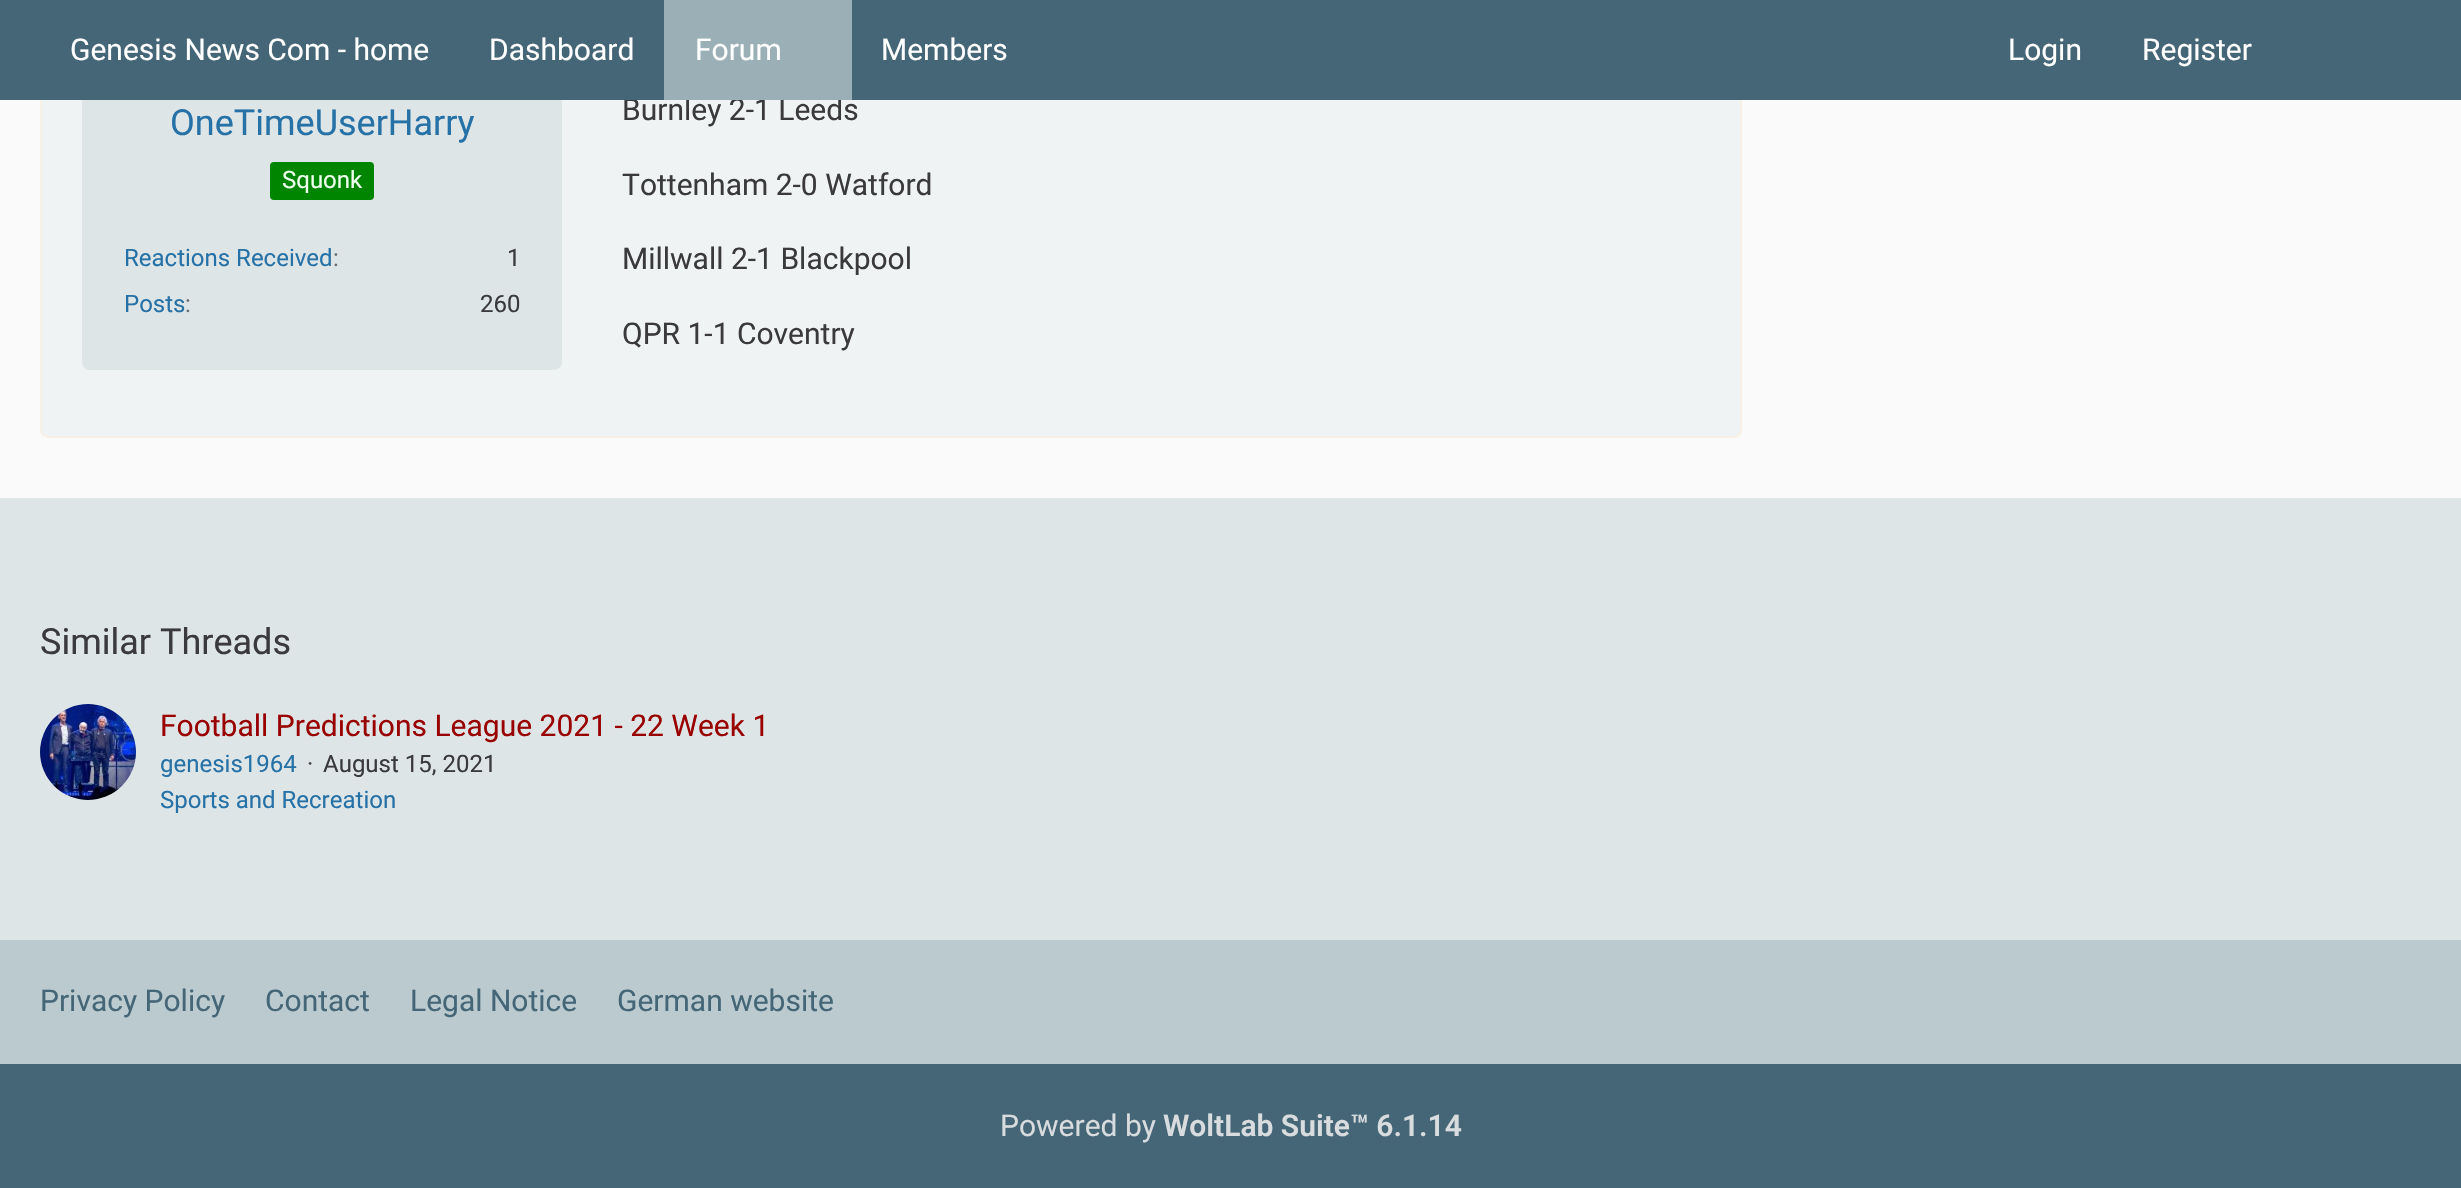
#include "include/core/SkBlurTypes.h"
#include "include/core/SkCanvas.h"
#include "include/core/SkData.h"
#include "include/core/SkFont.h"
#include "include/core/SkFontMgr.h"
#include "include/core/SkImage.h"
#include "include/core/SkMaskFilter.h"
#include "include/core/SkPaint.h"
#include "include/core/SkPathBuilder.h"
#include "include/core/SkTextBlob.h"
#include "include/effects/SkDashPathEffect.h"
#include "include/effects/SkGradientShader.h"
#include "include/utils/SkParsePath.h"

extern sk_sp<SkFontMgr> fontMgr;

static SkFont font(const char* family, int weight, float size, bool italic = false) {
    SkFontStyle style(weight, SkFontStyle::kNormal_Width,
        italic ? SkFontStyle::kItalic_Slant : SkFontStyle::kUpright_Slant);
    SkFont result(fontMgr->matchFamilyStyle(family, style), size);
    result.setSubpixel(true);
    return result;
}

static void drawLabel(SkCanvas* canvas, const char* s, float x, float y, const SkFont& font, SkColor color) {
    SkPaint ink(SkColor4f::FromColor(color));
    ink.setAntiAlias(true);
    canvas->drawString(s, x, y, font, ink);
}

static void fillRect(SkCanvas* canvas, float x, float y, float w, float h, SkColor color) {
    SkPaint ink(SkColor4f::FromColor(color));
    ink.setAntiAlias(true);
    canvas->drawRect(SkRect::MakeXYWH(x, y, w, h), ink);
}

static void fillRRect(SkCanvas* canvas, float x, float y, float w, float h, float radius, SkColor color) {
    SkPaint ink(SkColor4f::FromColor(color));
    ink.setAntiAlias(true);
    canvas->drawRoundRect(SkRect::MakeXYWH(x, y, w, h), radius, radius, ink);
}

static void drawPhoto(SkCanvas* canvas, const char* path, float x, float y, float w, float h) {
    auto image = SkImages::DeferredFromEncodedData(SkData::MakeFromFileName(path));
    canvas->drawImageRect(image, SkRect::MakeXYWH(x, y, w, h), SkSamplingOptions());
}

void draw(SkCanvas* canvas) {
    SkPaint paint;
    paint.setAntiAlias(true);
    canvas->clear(0xFFFAFAFA);
    paint.setColor(0xFFF0F3F4);
    canvas->drawRoundRect(SkRect::MakeXYWH(41, -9, 1700, 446), 7, 7, paint);
    paint.setStroke(true);
    paint.setStrokeWidth(2);
    paint.setColor(0xFFF6F1E4);
    canvas->drawRoundRect(SkRect::MakeXYWH(41, -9, 1700, 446), 7, 7, paint);
    fillRRect(canvas, 82, -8, 480, 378, 8, 0xFFDEE5E7);
    SkFont font1 = font("Roboto", 400, 30);
    drawLabel(canvas, "Burnley 2-1 Leeds", 622, 120, font1, 0xFF3A3A3D);
    fillRect(canvas, 0, 0, 2461, 100, 0xFF446677);
    drawLabel(canvas, "Genesis News Com - home", 70, 60, font1, 0xFFFFFFFF);
    drawLabel(canvas, "Dashboard", 489, 60, font1, 0xFFFFFFFF);
    fillRect(canvas, 664, 0, 188, 100, 0xFF9AB0B6);
    drawLabel(canvas, "Forum", 695, 60, font1, 0xFFFFFFFF);
    drawLabel(canvas, "Members", 881, 60, font1, 0xFFFFFFFF);
    drawLabel(canvas, "Login", 2008, 60, font1, 0xFFFFFFFF);
    drawLabel(canvas, "Register", 2142, 60, font1, 0xFFFFFFFF);
    SkFont font2 = font("Roboto", 400, 36);
    drawLabel(canvas, "OneTimeUserHarry", 170, 135, font2, 0xFF2671A6);
    fillRRect(canvas, 270, 162, 104, 38, 4, 0xFF008500);
    SkFont font3 = font("Roboto", 400, 24);
    drawLabel(canvas, "Squonk", 282, 188, font3, 0xFFEEFFEE);
    drawLabel(canvas, "Reactions Received", 124, 266, font3, 0xFF2671A6);
    drawLabel(canvas, ":", 333, 266, font3, 0xFF696D72);
    drawLabel(canvas, "1", 507, 266, font3, 0xFF3A3A3D);
    drawLabel(canvas, "Posts", 124, 312, font3, 0xFF2671A6);
    drawLabel(canvas, ":", 185, 312, font3, 0xFF696D72);
    drawLabel(canvas, "260", 480, 312, font3, 0xFF3A3A3D);
    drawLabel(canvas, "Tottenham 2-0 Watford", 622, 195, font1, 0xFF3A3A3D);
    drawLabel(canvas, "Millwall 2-1 Blackpool", 622, 269, font1, 0xFF3A3A3D);
    drawLabel(canvas, "QPR 1-1 Coventry", 622, 344, font1, 0xFF3A3A3D);
    fillRect(canvas, 0, 498, 2461, 442, 0xFFDEE5E7);
    drawLabel(canvas, "Similar Threads", 40, 654, font2, 0xFF3A3A3D);
    paint.setStroke(false);
    paint.setColor(0xFFFFFFFF);
    canvas->drawCircle(88, 752, 48, paint);
    drawPhoto(canvas, "assets/img1.png", 40, 704, 96, 96);
    drawLabel(canvas, "Football Predictions League 2021 - 22 Week 1", 160, 736, font1, 0xFF990000);
    drawLabel(canvas, "genesis1964", 160, 772, font3, 0xFF2671A6);
    drawLabel(canvas, "·", 307, 772, font3, 0xFF3A3A3D);
    drawLabel(canvas, "August 15, 2021", 323, 772, font3, 0xFF3A3A3D);
    drawLabel(canvas, "Sports and Recreation", 160, 808, font3, 0xFF2671A6);
    fillRect(canvas, 0, 940, 2461, 124, 0xFFBBCACE);
    drawLabel(canvas, "Privacy Policy", 40, 1011, font1, 0xFF446677);
    drawLabel(canvas, "Contact", 265, 1011, font1, 0xFF446677);
    drawLabel(canvas, "Legal Notice", 410, 1011, font1, 0xFF446677);
    drawLabel(canvas, "German website", 617, 1011, font1, 0xFF446677);
    fillRect(canvas, 0, 1064, 2461, 124, 0xFF446677);
    drawLabel(canvas, "Powered by", 1000, 1136, font1, 0xFFD9DCDE);
    SkFont font4 = font("Roboto", 600, 30);
    drawLabel(canvas, "WoltLab Suite™ 6.1.14", 1163, 1136, font4, 0xFFD9DCDE);
}
